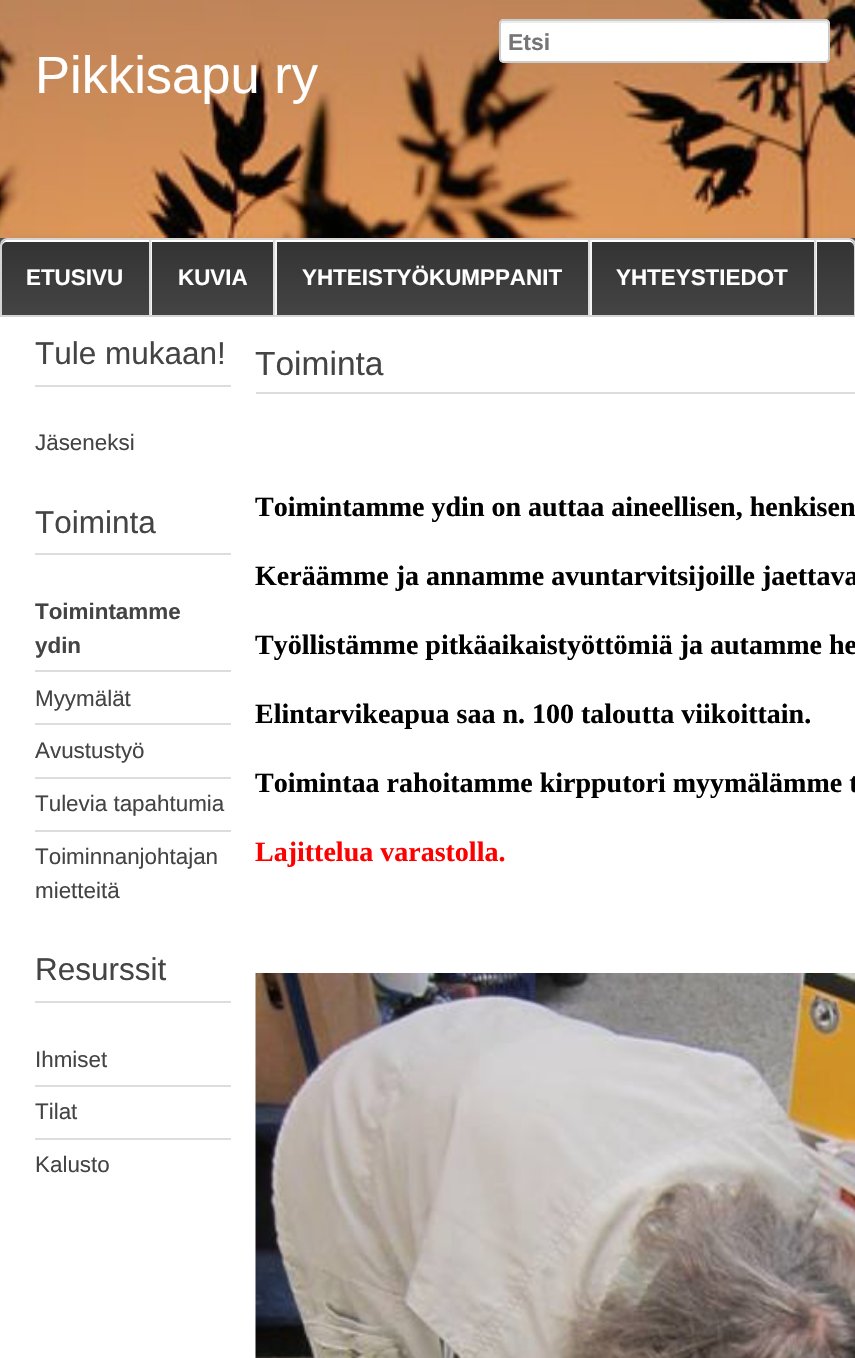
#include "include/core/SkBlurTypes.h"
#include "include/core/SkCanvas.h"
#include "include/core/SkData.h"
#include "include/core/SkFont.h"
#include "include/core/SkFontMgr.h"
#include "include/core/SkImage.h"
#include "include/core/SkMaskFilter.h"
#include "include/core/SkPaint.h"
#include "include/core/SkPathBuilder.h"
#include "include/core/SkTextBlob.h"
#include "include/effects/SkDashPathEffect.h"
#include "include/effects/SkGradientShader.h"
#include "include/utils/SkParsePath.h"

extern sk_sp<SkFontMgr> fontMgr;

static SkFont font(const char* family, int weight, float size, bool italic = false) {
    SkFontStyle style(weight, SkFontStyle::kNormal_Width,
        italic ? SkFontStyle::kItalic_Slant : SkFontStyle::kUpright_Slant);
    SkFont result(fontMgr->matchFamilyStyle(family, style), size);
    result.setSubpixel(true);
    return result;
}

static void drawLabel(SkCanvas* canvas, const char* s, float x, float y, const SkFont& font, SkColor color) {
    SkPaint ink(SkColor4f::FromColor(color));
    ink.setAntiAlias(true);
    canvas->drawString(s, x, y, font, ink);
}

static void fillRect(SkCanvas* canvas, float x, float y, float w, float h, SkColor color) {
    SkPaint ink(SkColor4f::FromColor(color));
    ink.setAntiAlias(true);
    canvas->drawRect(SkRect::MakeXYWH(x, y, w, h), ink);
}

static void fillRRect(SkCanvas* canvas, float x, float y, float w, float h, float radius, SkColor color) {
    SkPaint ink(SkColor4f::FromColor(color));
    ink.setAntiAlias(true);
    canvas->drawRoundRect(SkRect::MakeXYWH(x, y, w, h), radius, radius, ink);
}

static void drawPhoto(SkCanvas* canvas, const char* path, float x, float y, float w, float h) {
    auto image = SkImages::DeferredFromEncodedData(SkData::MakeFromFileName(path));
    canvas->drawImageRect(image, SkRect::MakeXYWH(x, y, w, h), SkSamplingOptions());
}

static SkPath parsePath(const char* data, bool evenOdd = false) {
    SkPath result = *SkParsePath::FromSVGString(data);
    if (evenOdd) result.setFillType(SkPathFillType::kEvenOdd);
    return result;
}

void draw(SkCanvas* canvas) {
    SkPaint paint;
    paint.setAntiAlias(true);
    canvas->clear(0xFFFFFFFF);
    fillRect(canvas, 0, 238, 855, 7, 0xFF504E57);
    drawPhoto(canvas, "assets/img1.png", 0, 0, 855, 238);
    fillRRect(canvas, 499, 19, 331, 44, 5, 0xFFFFFFFF);
    paint.setColor(0xFFECECEC);
    canvas->drawPath(parsePath("M504 23H824C826 23 828 24 828 26V25C828 23 826 21 824 21H505C503 21 502 22 501 24Z"), paint);
    paint.setStroke(true);
    paint.setStrokeWidth(2);
    paint.setColor(0xFFCCCCCC);
    canvas->drawRoundRect(SkRect::MakeXYWH(500, 20, 329, 42), 4, 4, paint);
    SkFont font1 = font("Liberation Sans", 700, 23);
    drawLabel(canvas, "Etsi", 508, 50, font1, 0xFF757575);
    SkFont font2 = font("Liberation Sans", 400, 52.5f);
    drawLabel(canvas, "Pikkisapu ry", 35, 93, font2, 0xFFFFFFFF);
    canvas->save();
    canvas->clipRect(SkRect::MakeXYWH(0, 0, 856, 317));
    paint.setStroke(false);
    paint.setColor(0x1A000000);
    paint.setMaskFilter(SkMaskFilter::MakeBlur(kNormal_SkBlurStyle, 4.5f));
    canvas->drawRoundRect(SkRect::MakeXYWH(0, 240, 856, 79), 7, 7, paint);
    paint.setMaskFilter(nullptr);
    canvas->restore();
    canvas->save();
    canvas->clipPath(parsePath("M7 238H849C853 238 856 241 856 245V317H0V245C0 241 3 238 7 238Z"), true);
    {
        const SkColor colors[] = {0xFF333333, 0xFF444444};
        const float stops[] = {0, 1};
        const SkPoint ends[] = {{428, 240}, {428, 315}};
        paint.setShader(SkGradientShader::MakeLinear(ends, colors, stops, 2, SkTileMode::kClamp));
        paint.setAlpha(255);
    }
    canvas->drawRect(SkRect::MakeXYWH(0, 240, 855, 75), paint);
    canvas->restore();
    paint.setShader(nullptr);
    paint.setColor(0xFFFFFFFF);
    canvas->drawPath(parsePath("M7 242H849C852 242 854 244 854 247V245C854 242 852 240 849 240H7C4 240 2 242 2 245V247C2 244 4 242 7 242Z"), paint);
    paint.setStroke(true);
    paint.setColor(0xFFD5D5D5);
    canvas->drawPath(parsePath("M7 239H849C852.5 239 855 241.5 855 245V316H1V245C1 241.5 3.5 239 7 239Z"), paint);
    fillRect(canvas, 151, 240, 1, 75, 0xFFF5F5F5);
    fillRect(canvas, 149, 240, 2, 75, 0xFFDDDDDD);
    SkFont font3 = font("Liberation Sans", 700, 22.4f);
    drawLabel(canvas, "ETUSIVU", 26, 285, font3, 0xFFFFFFFF);
    fillRect(canvas, 275, 240, 2, 75, 0xFFF5F5F5);
    fillRect(canvas, 273, 240, 2, 75, 0xFFDDDDDD);
    drawLabel(canvas, "KUVIA", 178, 285, font3, 0xFFFFFFFF);
    fillRect(canvas, 590, 240, 2, 75, 0xFFF5F5F5);
    fillRect(canvas, 588, 240, 2, 75, 0xFFDDDDDD);
    drawLabel(canvas, "YHTEISTYÖKUMPPANIT", 302, 285, font3, 0xFFFFFFFF);
    fillRect(canvas, 816, 240, 1, 75, 0xFFF5F5F5);
    fillRect(canvas, 814, 240, 2, 75, 0xFFDDDDDD);
    drawLabel(canvas, "YHTEYSTIEDOT", 616, 285, font3, 0xFFFFFFFF);
    fillRect(canvas, 35, 385, 196, 2, 0xFFDDDDDD);
    SkFont font4 = font("Liberation Sans", 400, 31.5f);
    drawLabel(canvas, "Tule mukaan!", 35, 364, font4, 0xFF444444);
    SkFont font5 = font("Liberation Sans", 400, 22.4f);
    drawLabel(canvas, "Jäseneksi", 35, 450, font5, 0xFF444444);
    fillRect(canvas, 35, 553, 196, 2, 0xFFDDDDDD);
    drawLabel(canvas, "Toiminta", 35, 533, font4, 0xFF444444);
    fillRect(canvas, 35, 670, 196, 2, 0xFFDDDDDD);
    drawLabel(canvas, "Toimintamme", 35, 619, font3, 0xFF444444);
    drawLabel(canvas, "ydin", 35, 653, font3, 0xFF444444);
    fillRect(canvas, 35, 723, 196, 2, 0xFFDDDDDD);
    drawLabel(canvas, "Myymälät", 35, 706, font5, 0xFF444444);
    fillRect(canvas, 35, 777, 196, 2, 0xFFDDDDDD);
    drawLabel(canvas, "Avustustyö", 35, 758, font5, 0xFF444444);
    fillRect(canvas, 35, 830, 196, 2, 0xFFDDDDDD);
    drawLabel(canvas, "Tulevia tapahtumia", 35, 811, font5, 0xFF444444);
    drawLabel(canvas, "Toiminnanjohtajan", 35, 864, font5, 0xFF444444);
    drawLabel(canvas, "mietteitä", 35, 898, font5, 0xFF444444);
    fillRect(canvas, 35, 1001, 196, 2, 0xFFDDDDDD);
    drawLabel(canvas, "Resurssit", 35, 980, font4, 0xFF444444);
    fillRect(canvas, 35, 1085, 196, 2, 0xFFDDDDDD);
    drawLabel(canvas, "Ihmiset", 35, 1067, font5, 0xFF444444);
    fillRect(canvas, 35, 1138, 196, 2, 0xFFDDDDDD);
    drawLabel(canvas, "Tilat", 35, 1119, font5, 0xFF444444);
    drawLabel(canvas, "Kalusto", 35, 1172, font5, 0xFF444444);
    fillRect(canvas, 256, 392, 599, 2, 0xFFDDDDDD);
    SkFont font6 = font("Liberation Sans", 400, 33.5f);
    drawLabel(canvas, "Toiminta", 255, 375, font6, 0xFF444444);
    SkFont font7 = font("Liberation Serif", 700, 28);
    drawLabel(canvas, "Toimintamme ydin on auttaa aineellisen, henkisen", 255, 516, font7, 0xFF000000);
    drawLabel(canvas, "Keräämme ja annamme avuntarvitsijoille jaettava", 255, 585, font7, 0xFF000000);
    drawLabel(canvas, "Työllistämme pitkäaikaistyöttömiä ja autamme he", 255, 654, font7, 0xFF000000);
    drawLabel(canvas, "Elintarvikeapua saa n. 100 taloutta viikoittain.", 255, 723, font7, 0xFF000000);
    drawLabel(canvas, "Toimintaa rahoitamme kirpputori myymälämme t", 255, 792, font7, 0xFF000000);
    drawLabel(canvas, "Lajittelua varastolla.", 255, 861, font7, 0xFFFF0000);
    drawPhoto(canvas, "assets/img2.png", 255, 973, 600, 385);
}
